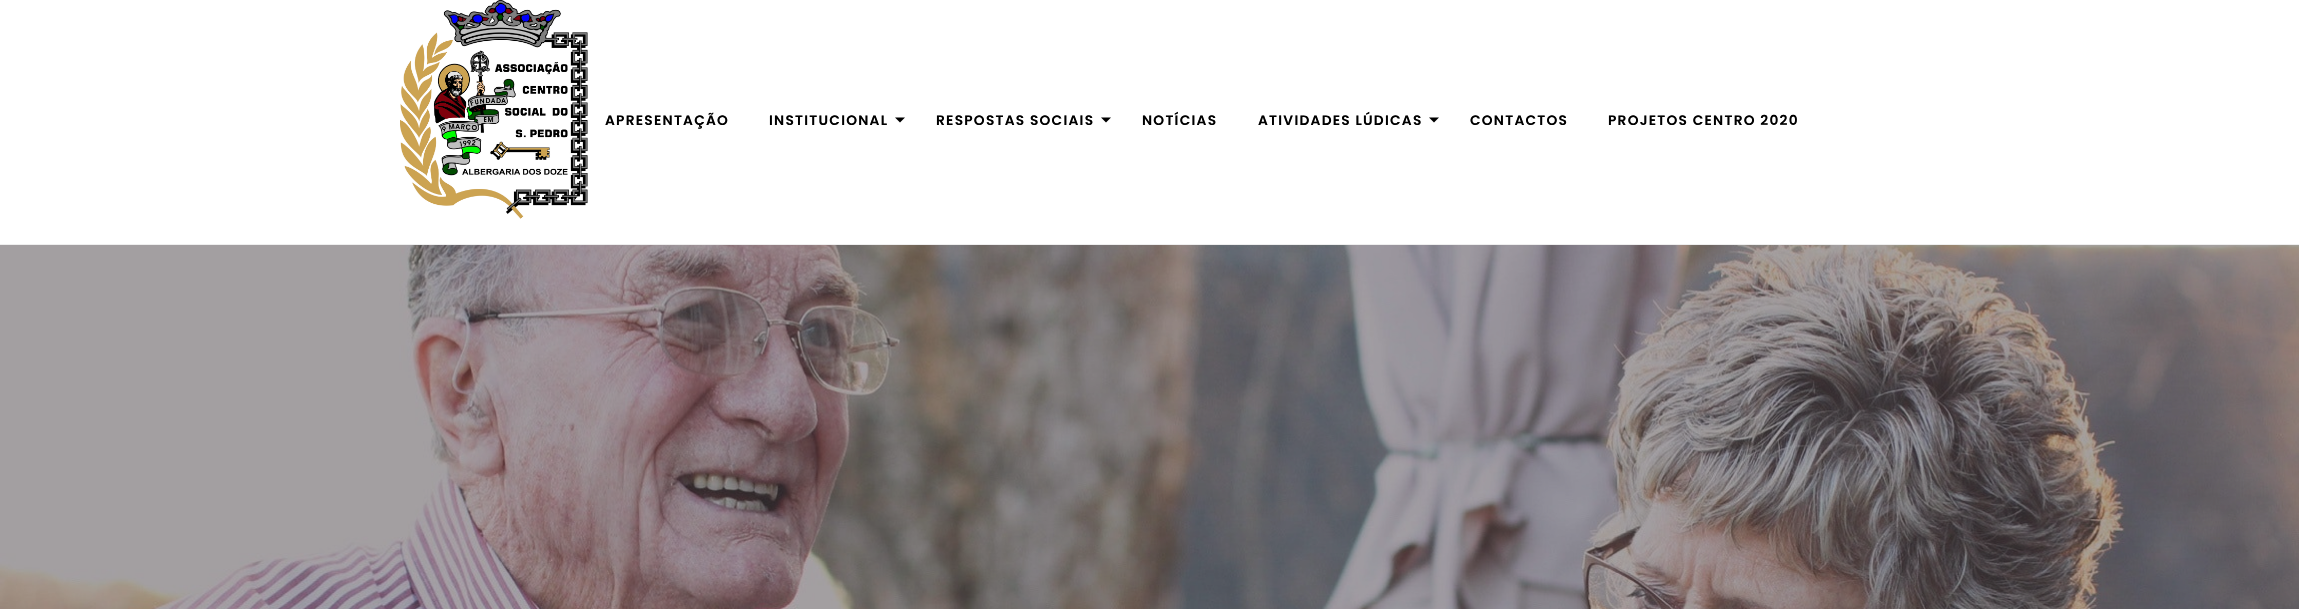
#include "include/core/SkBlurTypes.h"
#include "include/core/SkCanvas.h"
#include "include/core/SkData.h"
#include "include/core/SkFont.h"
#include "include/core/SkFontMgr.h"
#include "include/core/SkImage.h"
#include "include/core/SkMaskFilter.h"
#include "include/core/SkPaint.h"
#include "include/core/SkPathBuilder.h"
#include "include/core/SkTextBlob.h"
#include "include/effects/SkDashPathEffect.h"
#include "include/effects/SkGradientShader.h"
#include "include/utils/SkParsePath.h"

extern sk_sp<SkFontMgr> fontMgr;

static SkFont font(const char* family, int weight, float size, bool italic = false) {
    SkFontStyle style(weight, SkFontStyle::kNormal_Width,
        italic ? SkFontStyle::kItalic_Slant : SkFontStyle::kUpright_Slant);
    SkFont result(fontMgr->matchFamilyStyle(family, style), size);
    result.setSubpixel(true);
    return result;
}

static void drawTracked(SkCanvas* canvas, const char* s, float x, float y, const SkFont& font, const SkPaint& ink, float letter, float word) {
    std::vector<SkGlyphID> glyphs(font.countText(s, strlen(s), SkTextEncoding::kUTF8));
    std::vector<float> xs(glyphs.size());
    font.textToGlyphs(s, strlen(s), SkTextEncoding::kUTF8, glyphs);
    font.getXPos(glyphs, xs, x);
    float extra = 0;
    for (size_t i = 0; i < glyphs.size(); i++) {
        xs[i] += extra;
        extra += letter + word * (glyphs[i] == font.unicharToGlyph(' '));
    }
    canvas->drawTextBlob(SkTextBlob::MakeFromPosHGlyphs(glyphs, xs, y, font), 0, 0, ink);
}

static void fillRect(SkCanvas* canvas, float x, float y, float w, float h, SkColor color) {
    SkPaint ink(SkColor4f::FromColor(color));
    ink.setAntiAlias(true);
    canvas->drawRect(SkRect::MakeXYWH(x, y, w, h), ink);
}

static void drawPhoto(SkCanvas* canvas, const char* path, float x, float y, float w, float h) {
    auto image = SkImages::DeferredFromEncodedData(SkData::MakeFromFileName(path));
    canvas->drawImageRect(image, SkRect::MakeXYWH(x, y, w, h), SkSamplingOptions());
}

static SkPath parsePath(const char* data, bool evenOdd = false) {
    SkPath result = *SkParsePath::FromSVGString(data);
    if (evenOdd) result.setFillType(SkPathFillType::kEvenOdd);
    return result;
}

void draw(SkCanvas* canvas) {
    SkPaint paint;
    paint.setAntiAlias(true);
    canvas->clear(0xFFFFFFFF);
    drawPhoto(canvas, "assets/img1.png", 400, 0, 188, 219);
    SkFont font1 = font("Poppins", 600, 13.75f);
    paint.setColor(0xFF000000);
    drawTracked(canvas, "APRESENTAÇÃO", 605, 125, font1, paint, 1.25f, 0);
    drawTracked(canvas, "INSTITUCIONAL", 769, 125, font1, paint, 1.25f, 0);
    canvas->drawPath(parsePath("M895 117.5H905L900 122.5Z"), paint);
    drawTracked(canvas, "RESPOSTAS SOCIAIS", 936, 125, font1, paint, 1.25f, 0);
    canvas->drawPath(parsePath("M1101 117.5H1111L1106 122.5Z"), paint);
    drawTracked(canvas, "NOTÍCIAS", 1142, 125, font1, paint, 1.25f, 0);
    drawTracked(canvas, "ATIVIDADES LÚDICAS", 1258, 125, font1, paint, 1.25f, 0);
    canvas->drawPath(parsePath("M1429 117.5H1439L1434 122.5Z"), paint);
    drawTracked(canvas, "CONTACTOS", 1470, 125, font1, paint, 1.25f, 0);
    drawTracked(canvas, "PROJETOS CENTRO 2020", 1608, 125, font1, paint, 1.25f, 0);
    fillRect(canvas, 0, 244, 2299, 1, 0xFFEEEEEE);
    drawPhoto(canvas, "assets/img2.png", 0, 245, 2299, 364);
}
